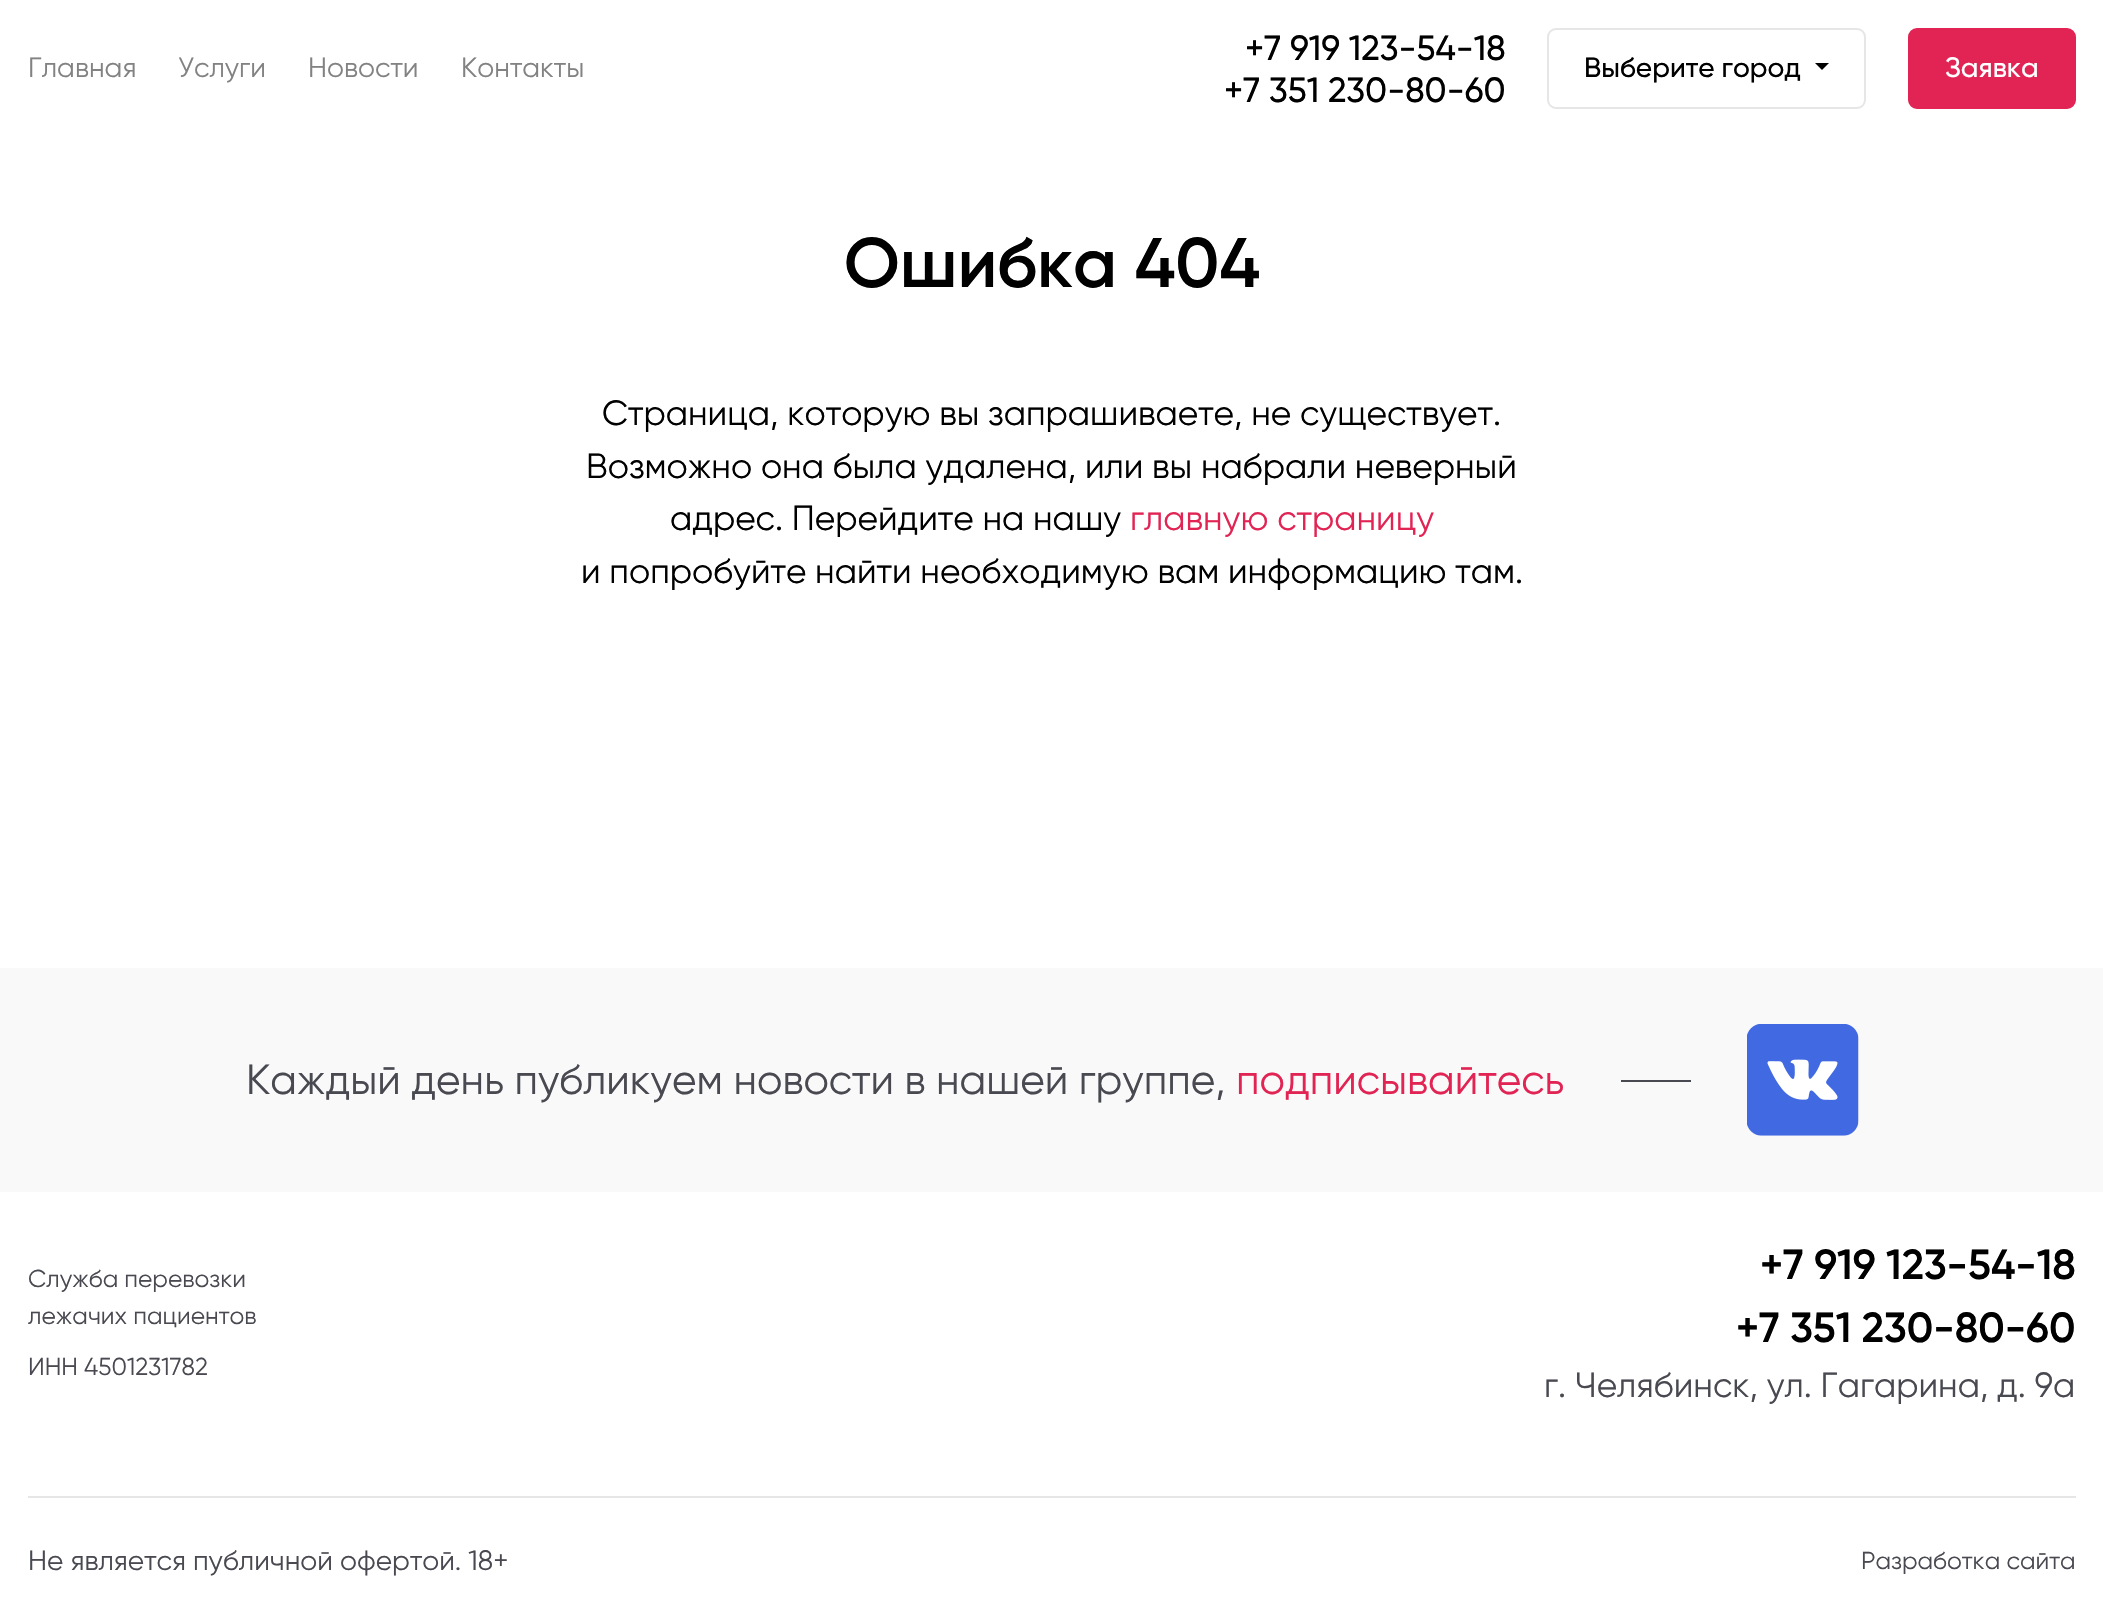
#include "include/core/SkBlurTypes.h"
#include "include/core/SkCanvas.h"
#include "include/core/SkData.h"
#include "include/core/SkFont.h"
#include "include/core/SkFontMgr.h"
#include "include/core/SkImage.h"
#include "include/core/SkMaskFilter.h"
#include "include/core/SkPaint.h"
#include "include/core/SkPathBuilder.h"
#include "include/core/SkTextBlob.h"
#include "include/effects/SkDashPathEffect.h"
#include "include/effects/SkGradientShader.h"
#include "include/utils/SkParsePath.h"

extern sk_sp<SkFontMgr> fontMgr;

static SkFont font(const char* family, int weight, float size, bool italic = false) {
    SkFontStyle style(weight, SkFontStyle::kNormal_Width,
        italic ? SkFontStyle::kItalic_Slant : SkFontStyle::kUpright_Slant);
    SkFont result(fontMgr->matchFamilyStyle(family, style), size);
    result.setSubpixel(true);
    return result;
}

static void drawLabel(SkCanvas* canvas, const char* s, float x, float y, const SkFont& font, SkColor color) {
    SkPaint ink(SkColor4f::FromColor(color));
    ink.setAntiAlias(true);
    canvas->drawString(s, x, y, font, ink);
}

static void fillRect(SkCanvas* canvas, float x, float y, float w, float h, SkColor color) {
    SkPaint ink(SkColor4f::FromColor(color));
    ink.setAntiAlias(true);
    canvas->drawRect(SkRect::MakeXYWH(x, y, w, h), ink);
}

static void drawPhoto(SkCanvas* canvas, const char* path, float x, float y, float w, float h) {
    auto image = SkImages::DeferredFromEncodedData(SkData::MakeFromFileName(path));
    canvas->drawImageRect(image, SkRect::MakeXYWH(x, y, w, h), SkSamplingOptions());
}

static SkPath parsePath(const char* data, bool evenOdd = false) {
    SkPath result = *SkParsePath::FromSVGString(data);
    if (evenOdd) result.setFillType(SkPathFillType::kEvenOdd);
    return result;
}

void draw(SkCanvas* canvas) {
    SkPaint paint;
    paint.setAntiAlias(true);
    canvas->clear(0xFFFFFFFF);
    SkFont font1 = font("Gilroy", 400, 28);
    drawLabel(canvas, "Главная", 28, 77, font1, 0xFF828282);
    drawLabel(canvas, "Услуги", 178, 77, font1, 0xFF828282);
    drawLabel(canvas, "Новости", 308, 77, font1, 0xFF828282);
    drawLabel(canvas, "Контакты", 461, 77, font1, 0xFF828282);
    SkFont font2 = font("Gilroy", 500, 35);
    drawLabel(canvas, "+7 919 123-54-18", 1245, 60, font2, 0xFF000000);
    drawLabel(canvas, "+7 351 230-80-60", 1224, 102, font2, 0xFF000000);
    paint.setStroke(true);
    paint.setStrokeWidth(2);
    paint.setColor(0xFFE6E6E6);
    canvas->drawRoundRect(SkRect::MakeXYWH(1548, 29, 317, 79), 8, 8, paint);
    SkFont font3 = font("Gilroy", 500, 28);
    drawLabel(canvas, "Выберите город", 1584, 77, font3, 0xFF000000);
    paint.setStroke(false);
    paint.setColor(0xFF000000);
    canvas->drawPath(parsePath("M1815 63H1829L1822 70Z"), paint);
    paint.setColor(0xFFE12454);
    canvas->drawRoundRect(SkRect::MakeXYWH(1909, 29, 166, 79), 8, 8, paint);
    paint.setStroke(true);
    canvas->drawRoundRect(SkRect::MakeXYWH(1909, 29, 166, 79), 8, 8, paint);
    drawLabel(canvas, "Заявка", 1945, 77, font3, 0xFFFFFFFF);
    SkFont font4 = font("Gilroy", 600, 70);
    drawLabel(canvas, "Ошибка 404", 844, 287, font4, 0xFF000000);
    SkFont font5 = font("Gilroy", 400, 35);
    drawLabel(canvas, "Страница, которую вы запрашиваете, не существует.", 602, 425, font5, 0xFF000000);
    drawLabel(canvas, "Возможно она была удалена, или вы набрали неверный", 586, 478, font5, 0xFF000000);
    drawLabel(canvas, "адрес. Перейдите на нашу", 670, 530, font5, 0xFF000000);
    drawLabel(canvas, "главную страницу", 1130, 530, font5, 0xFFE12454);
    drawLabel(canvas, "и попробуйте найти необходимую вам информацию там.", 581, 583, font5, 0xFF000000);
    fillRect(canvas, 0, 968, 2103, 224, 0xFFF9F9F9);
    SkFont font6 = font("Gilroy", 400, 42);
    drawLabel(canvas, "Каждый день публикуем новости в нашей группе,", 246, 1094, font6, 0xFF494A51);
    drawLabel(canvas, "подписывайтесь", 1236, 1094, font6, 0xFFE12454);
    fillRect(canvas, 1621, 1080, 70, 2, 0xFF494A51);
    drawPhoto(canvas, "assets/img1.png", 1747, 1024, 112, 112);
    SkFont font7 = font("Gilroy", 400, 24.5f);
    drawLabel(canvas, "Служба перевозки", 28, 1287, font7, 0xFF494A51);
    drawLabel(canvas, "лежачих пациентов", 28, 1324, font7, 0xFF494A51);
    drawLabel(canvas, "ИНН 4501231782", 28, 1375, font7, 0xFF494A51);
    SkFont font8 = font("Gilroy", 600, 42);
    drawLabel(canvas, "+7 919 123-54-18", 1760, 1279, font8, 0xFF000000);
    drawLabel(canvas, "+7 351 230-80-60", 1736, 1342, font8, 0xFF000000);
    drawLabel(canvas, "г. Челябинск, ул. Гагарина, д. 9а", 1544, 1397, font5, 0xFF494A51);
    fillRect(canvas, 28, 1496, 2048, 2, 0xFFE6E6E6);
    drawLabel(canvas, "Не является публичной офертой. 18+", 28, 1570, font1, 0xFF494A51);
    drawLabel(canvas, "Разработка сайта", 1861, 1569, font7, 0xFF494A51);
}
